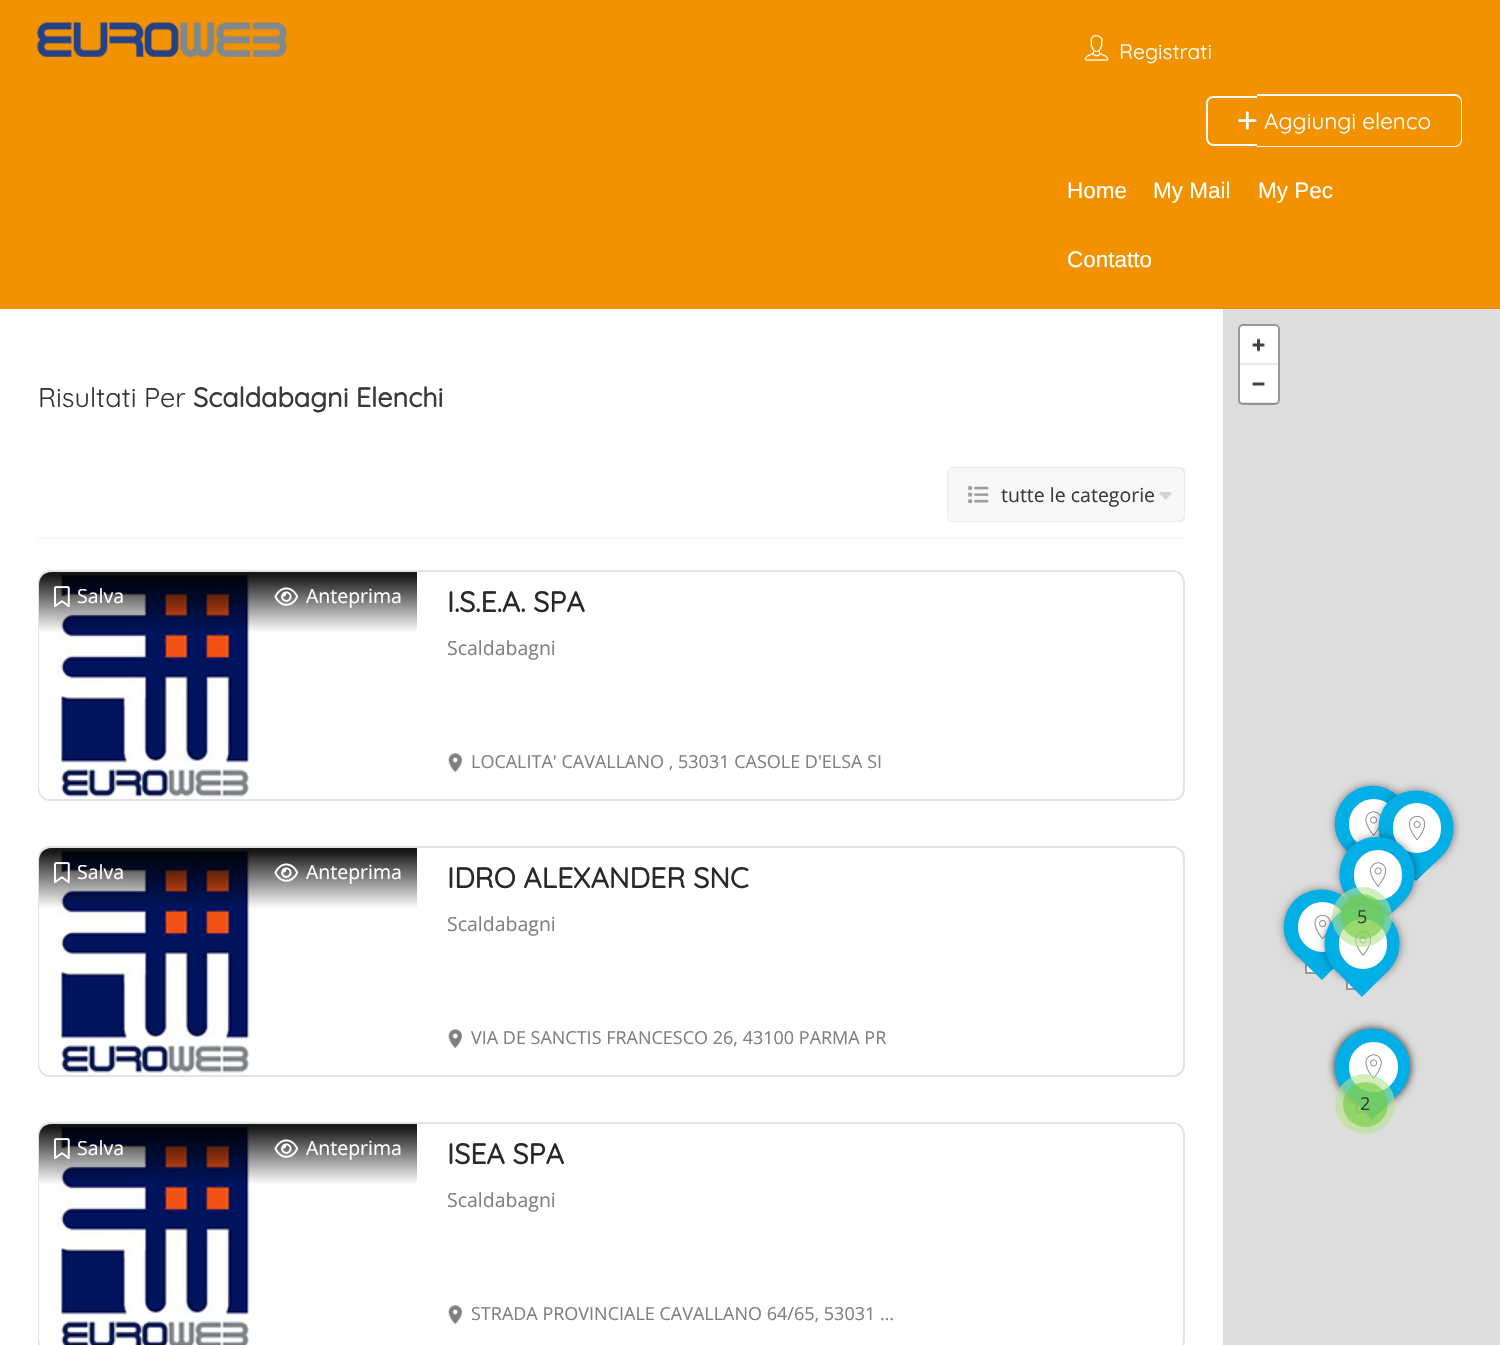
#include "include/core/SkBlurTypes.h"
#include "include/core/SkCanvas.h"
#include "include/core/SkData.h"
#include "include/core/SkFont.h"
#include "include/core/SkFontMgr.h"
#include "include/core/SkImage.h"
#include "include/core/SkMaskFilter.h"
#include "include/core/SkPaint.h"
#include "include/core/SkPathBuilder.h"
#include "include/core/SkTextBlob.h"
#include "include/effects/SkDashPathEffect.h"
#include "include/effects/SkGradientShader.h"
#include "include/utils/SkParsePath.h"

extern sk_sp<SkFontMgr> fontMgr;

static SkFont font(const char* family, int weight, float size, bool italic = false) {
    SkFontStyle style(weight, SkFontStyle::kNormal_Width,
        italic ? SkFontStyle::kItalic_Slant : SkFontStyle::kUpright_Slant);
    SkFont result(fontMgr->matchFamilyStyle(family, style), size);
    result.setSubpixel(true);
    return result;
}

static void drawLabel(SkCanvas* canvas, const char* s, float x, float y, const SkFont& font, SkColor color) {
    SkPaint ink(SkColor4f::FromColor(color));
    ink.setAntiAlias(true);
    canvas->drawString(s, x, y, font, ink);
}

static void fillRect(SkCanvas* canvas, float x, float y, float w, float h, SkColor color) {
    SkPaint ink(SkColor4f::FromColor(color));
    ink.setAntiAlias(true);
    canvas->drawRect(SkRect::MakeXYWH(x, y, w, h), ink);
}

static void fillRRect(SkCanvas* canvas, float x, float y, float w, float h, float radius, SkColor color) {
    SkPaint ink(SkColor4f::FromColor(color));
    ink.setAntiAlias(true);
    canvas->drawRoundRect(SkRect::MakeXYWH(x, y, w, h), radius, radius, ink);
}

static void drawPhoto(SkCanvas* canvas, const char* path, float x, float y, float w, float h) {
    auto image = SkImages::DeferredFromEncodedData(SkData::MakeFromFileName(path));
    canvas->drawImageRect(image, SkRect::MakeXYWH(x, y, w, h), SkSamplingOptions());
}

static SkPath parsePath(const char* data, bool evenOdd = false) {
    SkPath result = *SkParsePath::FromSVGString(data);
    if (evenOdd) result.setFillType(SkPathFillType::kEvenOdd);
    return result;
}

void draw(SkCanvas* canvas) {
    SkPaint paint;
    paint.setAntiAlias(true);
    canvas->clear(0xFFFFFFFF);
    fillRect(canvas, 0, 0, 1500, 309, 0xFFF29200);
    drawPhoto(canvas, "assets/img1.png", 37, 22, 250, 35);
    drawPhoto(canvas, "assets/img2.png", 1084, 35, 25, 26);
    SkFont font1 = font("Quicksand", 300, 21);
    drawLabel(canvas, "Registrati", 1119, 59, font1, 0xFFFFFFFF);
    paint.setColor(0xFFFFFFFF);
    canvas->drawPath(parsePath("M1214 96H1257V146H1214C1209 146 1206 142 1206 138V104C1206 99 1209 96 1214 96ZM1214 98H1257V144H1214C1210 144 1208 141 1208 138V104C1208 100 1210 98 1214 98Z", true), paint);
    canvas->drawPath(parsePath("M1257 94H1455C1459 94 1462 98 1462 102V140C1462 144 1459 147 1455 147H1257ZM1257 96H1455C1458 96 1461 99 1461 102V140C1461 143 1458 146 1455 146H1257Z", true), paint);
    drawPhoto(canvas, "assets/img3.png", 1238, 111, 19, 19);
    SkFont font2 = font("Quicksand", 300, 22.5f);
    drawLabel(canvas, "Aggiungi elenco", 1264, 129, font2, 0xFFFFFFFF);
    SkFont font3 = font("Liberation Sans", 400, 22.5f);
    drawLabel(canvas, "Home", 1067, 198, font3, 0xFFFFFFFF);
    drawLabel(canvas, "My Mail", 1153, 198, font3, 0xFFFFFFFF);
    drawLabel(canvas, "My Pec", 1258, 198, font3, 0xFFFFFFFF);
    drawLabel(canvas, "Contatto", 1067, 267, font3, 0xFFFFFFFF);
    SkFont font4 = font("Quicksand", 300, 27);
    drawLabel(canvas, "Risultati Per", 38, 407, font4, 0xFF333333);
    SkFont font5 = font("Quicksand", 700, 27);
    drawLabel(canvas, "Scaldabagni Elenchi", 193, 407, font5, 0xFF3A3A3A);
    fillRect(canvas, 38, 537, 1147, 2, 0xFFF6F6F6);
    paint.setColor(0xFFF8F8F8);
    canvas->drawRoundRect(SkRect::MakeXYWH(948, 468, 236, 53), 4, 4, paint);
    paint.setStroke(true);
    paint.setStrokeWidth(2);
    paint.setColor(0xFFEAEAEA);
    canvas->drawRoundRect(SkRect::MakeXYWH(948, 468, 236, 53), 4, 4, paint);
    fillRect(canvas, 948, 468, 41, 53, 0xFFF8F8F8);
    drawPhoto(canvas, "assets/img4.png", 968, 486, 21, 18);
    paint.setStroke(false);
    paint.setColor(0xFFF8F8F8);
    canvas->drawPath(parsePath("M989 468H1176C1180.5 468 1184 471.5 1184 476V513C1184 517.5 1180.5 521 1176 521H989Z"), paint);
    SkFont font6 = font("Open Sans", 400, 19.5f);
    drawLabel(canvas, "tutte le categorie", 1001, 502, font6, 0xFF3A3A3A);
    drawPhoto(canvas, "assets/img5.png", 1159, 492, 13, 8);
    paint.setStroke(true);
    paint.setColor(0xFFE3E3E3);
    canvas->drawRoundRect(SkRect::MakeXYWH(39, 571, 1145, 229), 11, 11, paint);
    drawPhoto(canvas, "assets/img6.png", 39, 572, 211, 227);
    paint.setStroke(false);
    {
        const SkColor colors[] = {0x00000000, 0xE6000000};
        const float stops[] = {0.08f, 0.94f};
        const SkPoint ends[] = {{228, 638}, {228, 572}};
        paint.setShader(SkGradientShader::MakeLinear(ends, colors, stops, 2, SkTileMode::kClamp));
        paint.setAlpha(255);
    }
    canvas->drawPath(parsePath("M51 572H417V638H39V584C39 577.5 44.5 572 51 572Z"), paint);
    drawPhoto(canvas, "assets/img7.png", 54, 586, 16, 22);
    drawLabel(canvas, "Salva", 77, 603, font6, 0xFFFFFFFF);
    drawPhoto(canvas, "assets/img8.png", 274, 587, 25, 19);
    drawLabel(canvas, "Anteprima", 306, 603, font6, 0xFFFFFFFF);
    SkFont font7 = font("Quicksand", 700, 28.5f);
    drawLabel(canvas, "I.S.E.A. SPA", 447, 612, font7, 0xFF292929);
    drawLabel(canvas, "Scaldabagni", 447, 655, font6, 0xFF7F7F7F);
    drawPhoto(canvas, "assets/img9.png", 448, 753, 14, 20);
    SkFont font8 = font("Open Sans", 400, 18);
    drawLabel(canvas, "LOCALITA' CAVALLANO , 53031 CASOLE D'ELSA SI", 471, 768, font8, 0xFF7F7F7F);
    paint.setStroke(true);
    paint.setShader(nullptr);
    paint.setColor(0xFFE3E3E3);
    canvas->drawRoundRect(SkRect::MakeXYWH(39, 847, 1145, 229), 11, 11, paint);
    drawPhoto(canvas, "assets/img6.png", 39, 848, 211, 227);
    paint.setStroke(false);
    {
        const SkColor colors[] = {0x00000000, 0xE6000000};
        const float stops[] = {0.08f, 0.94f};
        const SkPoint ends[] = {{228, 914}, {228, 848}};
        paint.setShader(SkGradientShader::MakeLinear(ends, colors, stops, 2, SkTileMode::kClamp));
        paint.setAlpha(255);
    }
    canvas->drawPath(parsePath("M51 848H417V914H39V860C39 853.5 44.5 848 51 848Z"), paint);
    drawPhoto(canvas, "assets/img7.png", 54, 862, 16, 22);
    drawLabel(canvas, "Salva", 77, 879, font6, 0xFFFFFFFF);
    drawPhoto(canvas, "assets/img8.png", 274, 863, 25, 19);
    drawLabel(canvas, "Anteprima", 306, 879, font6, 0xFFFFFFFF);
    drawLabel(canvas, "IDRO ALEXANDER SNC", 447, 888, font7, 0xFF292929);
    drawLabel(canvas, "Scaldabagni", 447, 931, font6, 0xFF7F7F7F);
    drawPhoto(canvas, "assets/img9.png", 448, 1029, 14, 20);
    drawLabel(canvas, "VIA DE SANCTIS FRANCESCO 26, 43100 PARMA PR", 471, 1044, font8, 0xFF7F7F7F);
    paint.setStroke(true);
    paint.setShader(nullptr);
    paint.setColor(0xFFE3E3E3);
    canvas->drawRoundRect(SkRect::MakeXYWH(39, 1123, 1145, 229), 11, 11, paint);
    drawPhoto(canvas, "assets/img10.png", 39, 1124, 211, 221);
    paint.setStroke(false);
    {
        const SkColor colors[] = {0x00000000, 0xE6000000};
        const float stops[] = {0.08f, 0.94f};
        const SkPoint ends[] = {{228, 1190}, {228, 1124}};
        paint.setShader(SkGradientShader::MakeLinear(ends, colors, stops, 2, SkTileMode::kClamp));
        paint.setAlpha(255);
    }
    canvas->drawPath(parsePath("M51 1124H417V1190H39V1136C39 1129.5 44.5 1124 51 1124Z"), paint);
    drawPhoto(canvas, "assets/img7.png", 54, 1138, 16, 22);
    drawLabel(canvas, "Salva", 77, 1155, font6, 0xFFFFFFFF);
    drawPhoto(canvas, "assets/img8.png", 274, 1139, 25, 19);
    drawLabel(canvas, "Anteprima", 306, 1155, font6, 0xFFFFFFFF);
    drawLabel(canvas, "ISEA SPA", 447, 1164, font7, 0xFF292929);
    drawLabel(canvas, "Scaldabagni", 447, 1207, font6, 0xFF7F7F7F);
    drawPhoto(canvas, "assets/img9.png", 448, 1305, 14, 20);
    drawLabel(canvas, "STRADA PROVINCIALE CAVALLANO 64/65, 53031 …", 471, 1320, font8, 0xFF7F7F7F);
    fillRect(canvas, 1223, 309, 277, 1036, 0xFFDDDDDD);
    fillRRect(canvas, 1238, 324, 42, 81, 5, 0xFFFFFFFF);
    paint.setStroke(true);
    paint.setShader(nullptr);
    paint.setColor(0x66000000);
    canvas->drawRoundRect(SkRect::MakeXYWH(1239, 325, 40, 79), 4, 4, paint);
    drawPhoto(canvas, "assets/img11.png", 1252, 338, 13, 14);
    fillRect(canvas, 1239, 363, 39, 2, 0x14000000);
    drawPhoto(canvas, "assets/img12.png", 1252, 382, 13, 4);
    fillRect(canvas, 1239, 402, 39, 2, 0x14000000);
    paint.setStroke(false);
    paint.setColor(0x78000000);
    paint.setMaskFilter(SkMaskFilter::MakeBlur(kNormal_SkBlurStyle, 4));
    canvas->drawRoundRect(SkRect::MakeXYWH(1335, 786, 75, 75), 37.5f, 37.5f, paint);
    paint.setMaskFilter(nullptr);
    paint.setColor(0xFF01AEE6);
    canvas->drawPath(parsePath("M1346 797C1361 782 1384 782 1399 797C1414 812 1414 835 1399 850L1372 877L1346 850C1331 835 1331 812 1346 797Z"), paint);
    paint.setColor(0xFFFFFFFF);
    canvas->drawRoundRect(SkRect::MakeXYWH(1348, 798, 51, 52), 25.5f, 25.5f, paint);
    paint.setStroke(true);
    paint.setColor(0xFF01AEE6);
    canvas->drawRoundRect(SkRect::MakeXYWH(1348, 798, 51, 52), 25.5f, 25.5f, paint);
    drawPhoto(canvas, "assets/img13.png", 1365, 811, 16, 25);
    paint.setStroke(false);
    paint.setColor(0x78000000);
    paint.setMaskFilter(SkMaskFilter::MakeBlur(kNormal_SkBlurStyle, 4));
    canvas->drawRoundRect(SkRect::MakeXYWH(1379, 791, 75, 75), 37.5f, 37.5f, paint);
    paint.setMaskFilter(nullptr);
    paint.setColor(0xFF01AEE6);
    canvas->drawPath(parsePath("M1389 801C1404 787 1428 787 1443 801C1457 816 1457 840 1443 855L1416 881L1389 855C1375 840 1375 816 1389 801Z"), paint);
    paint.setColor(0xFFFFFFFF);
    canvas->drawRoundRect(SkRect::MakeXYWH(1392, 802, 50, 52), 25, 25, paint);
    paint.setStroke(true);
    paint.setColor(0xFF01AEE6);
    canvas->drawRoundRect(SkRect::MakeXYWH(1392, 802, 50, 52), 25, 25, paint);
    drawPhoto(canvas, "assets/img14.png", 1409, 816, 16, 24);
    fillRect(canvas, 1307, 965, 7, 7, 0xFFFFFFFF);
    paint.setColor(0xFF999999);
    canvas->drawRect(SkRect::MakeXYWH(1306, 957, 16, 16), paint);
    paint.setStroke(false);
    paint.setColor(0x78000000);
    paint.setMaskFilter(SkMaskFilter::MakeBlur(kNormal_SkBlurStyle, 4));
    canvas->drawRoundRect(SkRect::MakeXYWH(1340, 837, 75, 75), 37.5f, 37.5f, paint);
    paint.setMaskFilter(nullptr);
    paint.setColor(0xFF01AEE6);
    canvas->drawPath(parsePath("M1350 848C1365 833 1389 833 1404 848C1418 863 1418 886 1404 901L1377 928L1350 901C1336 886 1336 863 1350 848Z"), paint);
    paint.setColor(0xFFFFFFFF);
    canvas->drawRoundRect(SkRect::MakeXYWH(1353, 849, 50, 52), 25, 25, paint);
    paint.setStroke(true);
    paint.setColor(0xFF01AEE6);
    canvas->drawRoundRect(SkRect::MakeXYWH(1353, 849, 50, 52), 25, 25, paint);
    drawPhoto(canvas, "assets/img16.png", 1370, 862, 16, 25);
    paint.setStroke(false);
    paint.setColor(0x78000000);
    paint.setMaskFilter(SkMaskFilter::MakeBlur(kNormal_SkBlurStyle, 4));
    canvas->drawRoundRect(SkRect::MakeXYWH(1284, 890, 75, 75), 37.5f, 37.5f, paint);
    paint.setMaskFilter(nullptr);
    paint.setColor(0xFF01AEE6);
    canvas->drawPath(parsePath("M1295 900C1310 886 1333 886 1348 900C1363 915 1363 939 1348 954L1322 980L1295 954C1280 939 1280 915 1295 900Z"), paint);
    paint.setColor(0xFFFFFFFF);
    canvas->drawRoundRect(SkRect::MakeXYWH(1297, 901, 51, 52), 25.5f, 25.5f, paint);
    paint.setStroke(true);
    paint.setColor(0xFF01AEE6);
    canvas->drawRoundRect(SkRect::MakeXYWH(1297, 901, 51, 52), 25.5f, 25.5f, paint);
    drawPhoto(canvas, "assets/img15.png", 1314, 915, 17, 24);
    fillRect(canvas, 1348, 983, 5, 5, 0xFFFFFFFF);
    paint.setColor(0xFF999999);
    canvas->drawRect(SkRect::MakeXYWH(1347, 973, 16, 16), paint);
    paint.setStroke(false);
    paint.setColor(0x78000000);
    paint.setMaskFilter(SkMaskFilter::MakeBlur(kNormal_SkBlurStyle, 4));
    canvas->drawRoundRect(SkRect::MakeXYWH(1325, 906, 75, 75), 37.5f, 37.5f, paint);
    paint.setMaskFilter(nullptr);
    paint.setColor(0xFF01AEE6);
    canvas->drawPath(parsePath("M1335 917C1350 902 1374 902 1389 917C1403 932 1403 955 1389 970L1362 997L1335 970C1321 955 1321 932 1335 917Z"), paint);
    paint.setColor(0xFFFFFFFF);
    canvas->drawRoundRect(SkRect::MakeXYWH(1338, 918, 50, 52), 25, 25, paint);
    paint.setStroke(true);
    paint.setColor(0xFF01AEE6);
    canvas->drawRoundRect(SkRect::MakeXYWH(1338, 918, 50, 52), 25, 25, paint);
    drawPhoto(canvas, "assets/img16.png", 1355, 931, 16, 25);
    paint.setStroke(false);
    paint.setColor(0x99B5E28C);
    canvas->drawCircle(1362, 917, 30, paint);
    paint.setColor(0x996ECC39);
    canvas->drawCircle(1362.5f, 916.5f, 22.5f, paint);
    drawLabel(canvas, "5", 1357, 923, font8, 0xFF3A3A3A);
    paint.setColor(0x78000000);
    paint.setMaskFilter(SkMaskFilter::MakeBlur(kNormal_SkBlurStyle, 4));
    canvas->drawRoundRect(SkRect::MakeXYWH(1335, 1029, 75, 75), 37.5f, 37.5f, paint);
    paint.setMaskFilter(nullptr);
    fillRect(canvas, 1358, 1105, 6, 6, 0xFFFFFFFF);
    paint.setStroke(true);
    paint.setColor(0xFF999999);
    canvas->drawRect(SkRect::MakeXYWH(1357, 1096, 16, 16), paint);
    paint.setStroke(false);
    paint.setColor(0x78000000);
    paint.setMaskFilter(SkMaskFilter::MakeBlur(kNormal_SkBlurStyle, 4));
    canvas->drawRoundRect(SkRect::MakeXYWH(1335, 1029, 75, 75), 37.5f, 37.5f, paint);
    paint.setMaskFilter(nullptr);
    paint.setColor(0xFF01AEE6);
    canvas->drawPath(parsePath("M1346 1040C1361 1025 1384 1025 1399 1040C1414 1055 1414 1078 1399 1093L1372 1120L1346 1093C1331 1078 1331 1055 1346 1040Z"), paint);
    paint.setColor(0xFFFFFFFF);
    canvas->drawRoundRect(SkRect::MakeXYWH(1348, 1041, 51, 52), 25.5f, 25.5f, paint);
    paint.setStroke(true);
    paint.setColor(0xFF01AEE6);
    canvas->drawRoundRect(SkRect::MakeXYWH(1348, 1041, 51, 52), 25.5f, 25.5f, paint);
    drawPhoto(canvas, "assets/img17.png", 1365, 1054, 17, 25);
    paint.setStroke(false);
    paint.setColor(0x99B5E28C);
    canvas->drawCircle(1365, 1104, 30, paint);
    paint.setColor(0x996ECC39);
    canvas->drawCircle(1365.5f, 1104.5f, 22.5f, paint);
    drawLabel(canvas, "2", 1360, 1110, font8, 0xFF3A3A3A);
}
